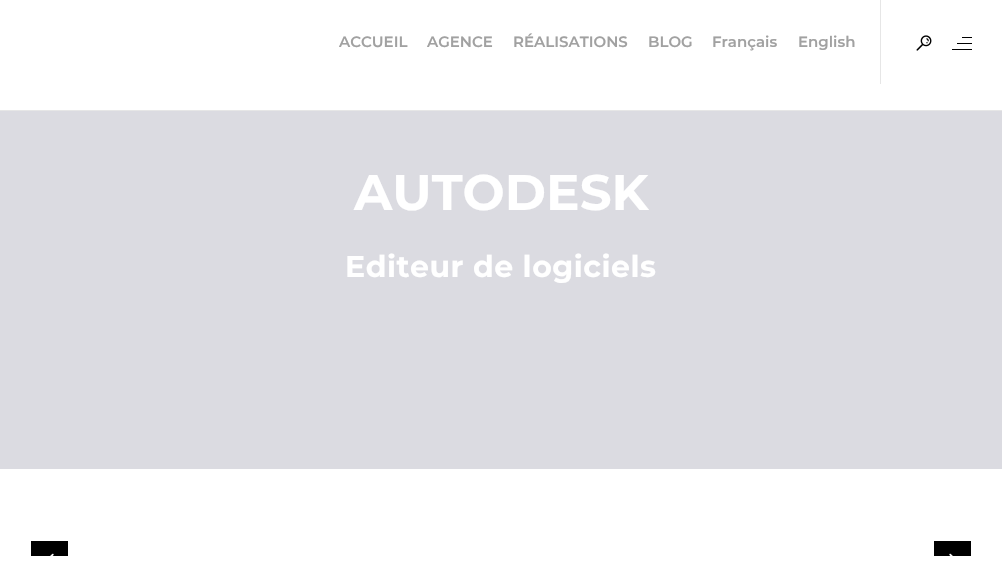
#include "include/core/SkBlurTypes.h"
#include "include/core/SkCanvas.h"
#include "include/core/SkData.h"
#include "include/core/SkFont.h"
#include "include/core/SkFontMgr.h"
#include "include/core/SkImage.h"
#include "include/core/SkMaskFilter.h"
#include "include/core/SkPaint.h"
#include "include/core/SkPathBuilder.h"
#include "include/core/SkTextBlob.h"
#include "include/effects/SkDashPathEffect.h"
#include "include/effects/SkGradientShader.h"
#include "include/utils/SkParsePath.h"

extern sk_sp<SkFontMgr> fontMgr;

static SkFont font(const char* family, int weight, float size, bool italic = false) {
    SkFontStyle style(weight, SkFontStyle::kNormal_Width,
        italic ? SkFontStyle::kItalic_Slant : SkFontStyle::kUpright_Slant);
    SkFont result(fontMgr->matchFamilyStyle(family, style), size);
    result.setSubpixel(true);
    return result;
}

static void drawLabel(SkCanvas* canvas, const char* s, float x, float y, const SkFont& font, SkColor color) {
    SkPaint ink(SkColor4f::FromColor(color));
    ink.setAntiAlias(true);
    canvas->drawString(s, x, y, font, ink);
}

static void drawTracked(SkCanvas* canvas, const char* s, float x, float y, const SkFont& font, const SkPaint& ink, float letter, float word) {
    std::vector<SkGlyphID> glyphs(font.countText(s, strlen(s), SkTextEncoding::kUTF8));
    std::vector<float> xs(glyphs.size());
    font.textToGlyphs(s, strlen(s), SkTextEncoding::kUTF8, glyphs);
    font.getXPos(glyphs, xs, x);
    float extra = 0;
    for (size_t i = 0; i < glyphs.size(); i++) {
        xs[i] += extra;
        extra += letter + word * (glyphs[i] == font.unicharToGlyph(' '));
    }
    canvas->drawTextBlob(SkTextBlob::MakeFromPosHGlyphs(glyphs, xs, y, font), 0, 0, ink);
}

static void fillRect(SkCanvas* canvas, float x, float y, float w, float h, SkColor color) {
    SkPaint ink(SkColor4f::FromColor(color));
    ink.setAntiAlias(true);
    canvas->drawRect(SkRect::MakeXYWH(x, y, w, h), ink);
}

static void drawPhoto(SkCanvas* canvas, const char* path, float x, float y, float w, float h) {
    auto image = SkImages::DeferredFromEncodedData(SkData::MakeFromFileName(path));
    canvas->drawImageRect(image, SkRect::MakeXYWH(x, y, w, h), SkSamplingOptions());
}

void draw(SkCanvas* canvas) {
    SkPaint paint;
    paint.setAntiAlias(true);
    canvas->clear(0xFFFFFFFF);
    fillRect(canvas, 0, 110, 1002, 1, 0xFFE6E6E6);
    fillRect(canvas, 880, 0, 1, 84, 0xFFE6E6E6);
    SkFont font1 = font("Montserrat", 600, 15);
    drawLabel(canvas, "ACCUEIL", 339, 47, font1, 0xFFA1A1A1);
    drawLabel(canvas, "AGENCE", 427, 47, font1, 0xFFA1A1A1);
    drawLabel(canvas, "RÉALISATIONS", 513, 47, font1, 0xFFA1A1A1);
    drawLabel(canvas, "BLOG", 648, 47, font1, 0xFFA1A1A1);
    drawLabel(canvas, "Français", 712, 47, font1, 0xFFA1A1A1);
    drawLabel(canvas, "English", 798, 47, font1, 0xFFA1A1A1);
    drawPhoto(canvas, "assets/img1.png", 916, 35, 16, 16);
    fillRect(canvas, 962, 37, 10, 1, 0xFF000000);
    fillRect(canvas, 957, 43, 15, 1, 0xFF000000);
    fillRect(canvas, 952, 49, 20, 1, 0xFF000000);
    fillRect(canvas, 0, 111, 1002, 358, 0xFFDBDBE1);
    SkFont font2 = font("Montserrat", 700, 50);
    drawLabel(canvas, "AUTODESK", 354, 210, font2, 0xFFFFFFFF);
    SkFont font3 = font("Montserrat", 700, 30);
    paint.setColor(0xFFFFFFFF);
    drawTracked(canvas, "Editeur de logiciels", 345, 277, font3, paint, 0.5f, 0);
    fillRect(canvas, 31, 541, 37, 15, 0xFF000000);
    drawPhoto(canvas, "assets/img2.png", 50, 553, 4, 3);
    fillRect(canvas, 934, 541, 37, 15, 0xFF000000);
    drawPhoto(canvas, "assets/img3.png", 949, 553, 4, 3);
}
